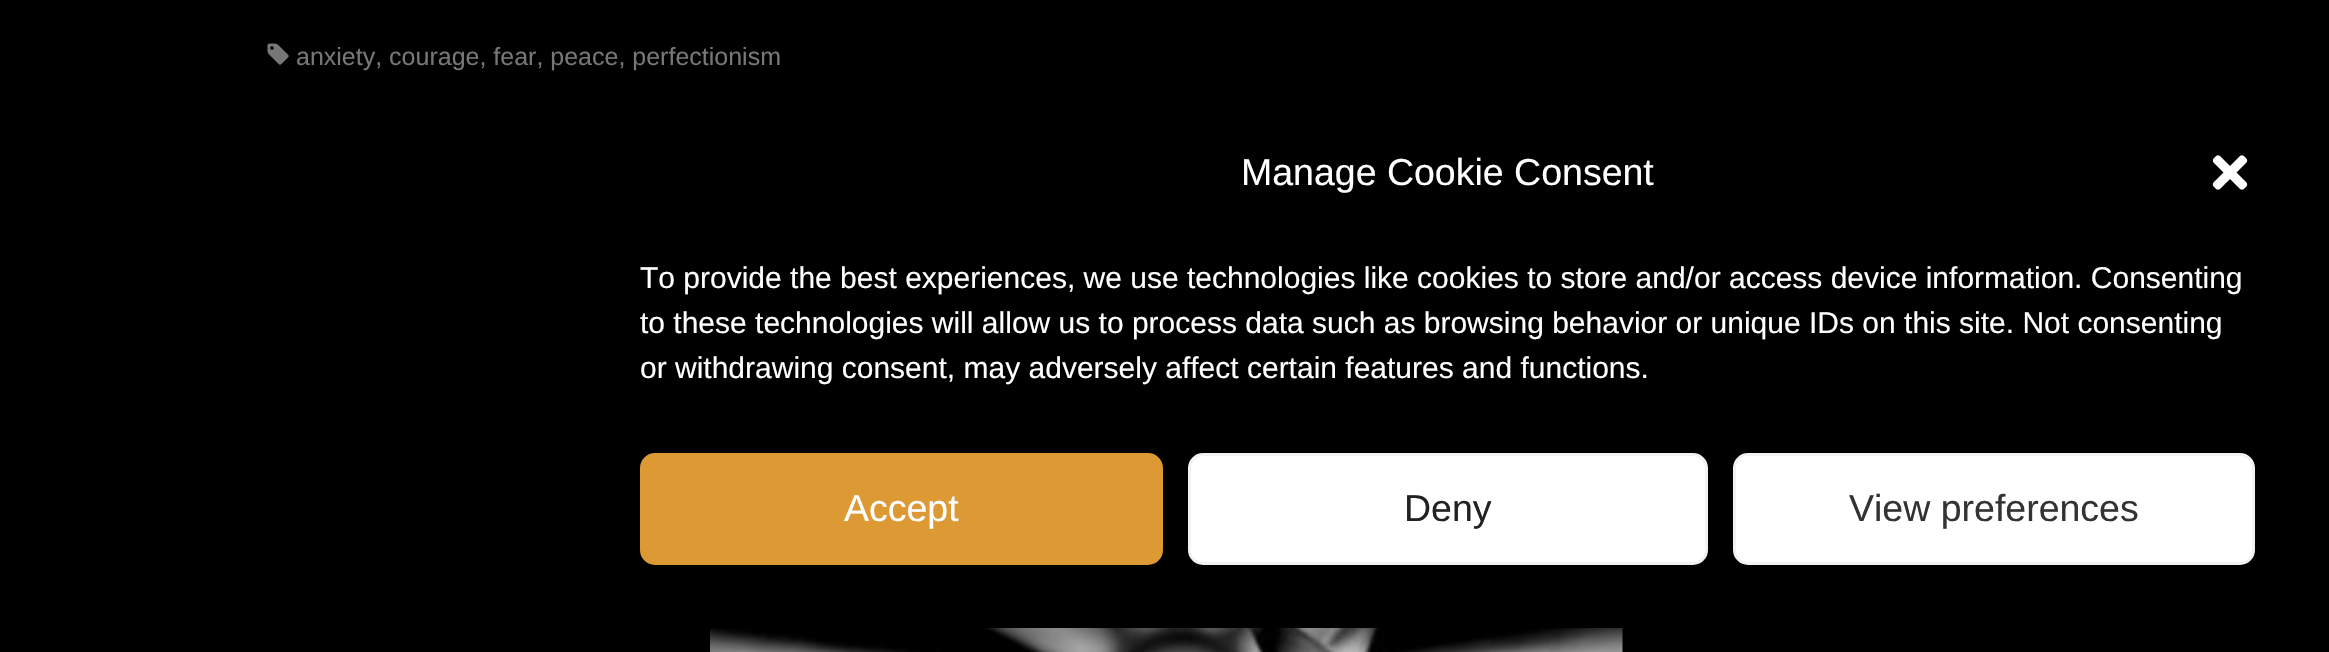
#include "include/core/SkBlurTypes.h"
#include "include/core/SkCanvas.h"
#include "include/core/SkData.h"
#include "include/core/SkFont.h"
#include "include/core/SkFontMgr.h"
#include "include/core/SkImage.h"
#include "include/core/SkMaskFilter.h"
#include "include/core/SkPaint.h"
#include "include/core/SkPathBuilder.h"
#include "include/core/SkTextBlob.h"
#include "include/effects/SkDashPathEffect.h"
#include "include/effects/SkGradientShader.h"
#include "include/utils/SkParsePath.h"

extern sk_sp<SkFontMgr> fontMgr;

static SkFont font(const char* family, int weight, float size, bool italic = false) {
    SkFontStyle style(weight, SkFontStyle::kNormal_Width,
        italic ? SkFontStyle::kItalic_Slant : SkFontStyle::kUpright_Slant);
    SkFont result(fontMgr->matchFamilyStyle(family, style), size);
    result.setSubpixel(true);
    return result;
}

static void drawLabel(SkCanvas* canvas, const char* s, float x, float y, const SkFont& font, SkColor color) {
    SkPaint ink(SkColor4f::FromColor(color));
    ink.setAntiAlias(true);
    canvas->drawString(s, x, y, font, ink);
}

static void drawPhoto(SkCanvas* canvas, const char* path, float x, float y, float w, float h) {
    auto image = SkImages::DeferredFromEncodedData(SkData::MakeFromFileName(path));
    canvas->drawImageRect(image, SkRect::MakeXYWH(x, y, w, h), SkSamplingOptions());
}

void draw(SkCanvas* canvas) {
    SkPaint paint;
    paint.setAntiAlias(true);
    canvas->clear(0xFF000000);
    drawPhoto(canvas, "assets/img1.png", 267, 43, 22, 22);
    SkFont font1 = font("Liberation Sans", 400, 25);
    drawLabel(canvas, "anxiety, courage, fear, peace, perfectionism", 296, 65, font1, 0xFF777777);
    drawPhoto(canvas, "assets/img2.png", 710, 628, 913, 24);
    paint.setColor(0x3B000000);
    paint.setMaskFilter(SkMaskFilter::MakeBlur(kNormal_SkBlurStyle, 7.5f));
    canvas->drawRoundRect(SkRect::MakeXYWH(590, 118, 1715, 525), 30, 30, paint);
    paint.setMaskFilter(nullptr);
    paint.setColor(0x30000000);
    paint.setMaskFilter(SkMaskFilter::MakeBlur(kNormal_SkBlurStyle, 25));
    canvas->drawRoundRect(SkRect::MakeXYWH(590, 128, 1715, 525), 30, 30, paint);
    paint.setMaskFilter(nullptr);
    SkFont font2 = font("Liberation Sans", 400, 37.5f);
    drawLabel(canvas, "Manage Cookie Consent", 1241, 185, font2, 0xFFFFFFFF);
    drawPhoto(canvas, "assets/img3.png", 2212, 155, 36, 35);
    SkFont font3 = font("Liberation Sans", 400, 30);
    drawLabel(canvas, "To provide the best experiences, we use technologies like cookies to store and/or access device information. Consenting", 640, 288, font3, 0xFFFFFFFF);
    drawLabel(canvas, "to these technologies will allow us to process data such as browsing behavior or unique IDs on this site. Not consenting", 640, 333, font3, 0xFFFFFFFF);
    drawLabel(canvas, "or withdrawing consent, may adversely affect certain features and functions.", 640, 378, font3, 0xFFFFFFFF);
    paint.setColor(0xFFDD9933);
    canvas->drawRoundRect(SkRect::MakeXYWH(641.5f, 454.5f, 520, 109), 13.5f, 13.5f, paint);
    paint.setStroke(true);
    paint.setStrokeWidth(3);
    canvas->drawRoundRect(SkRect::MakeXYWH(641.5f, 454.5f, 520, 109), 13.5f, 13.5f, paint);
    drawLabel(canvas, "Accept", 844, 521, font2, 0xFFFFFFFF);
    paint.setStroke(false);
    paint.setColor(0xFFFFFFFF);
    canvas->drawRoundRect(SkRect::MakeXYWH(1189.5f, 454.5f, 517, 109), 13.5f, 13.5f, paint);
    paint.setStroke(true);
    paint.setColor(0xFFF2F2F2);
    canvas->drawRoundRect(SkRect::MakeXYWH(1189.5f, 454.5f, 517, 109), 13.5f, 13.5f, paint);
    drawLabel(canvas, "Deny", 1404, 521, font2, 0xFF222222);
    paint.setStroke(false);
    paint.setColor(0xFFFFFFFF);
    canvas->drawRoundRect(SkRect::MakeXYWH(1734.5f, 454.5f, 519, 109), 13.5f, 13.5f, paint);
    paint.setStroke(true);
    paint.setColor(0xFFF2F2F2);
    canvas->drawRoundRect(SkRect::MakeXYWH(1734.5f, 454.5f, 519, 109), 13.5f, 13.5f, paint);
    drawLabel(canvas, "View preferences", 1849, 521, font2, 0xFF333333);
}
